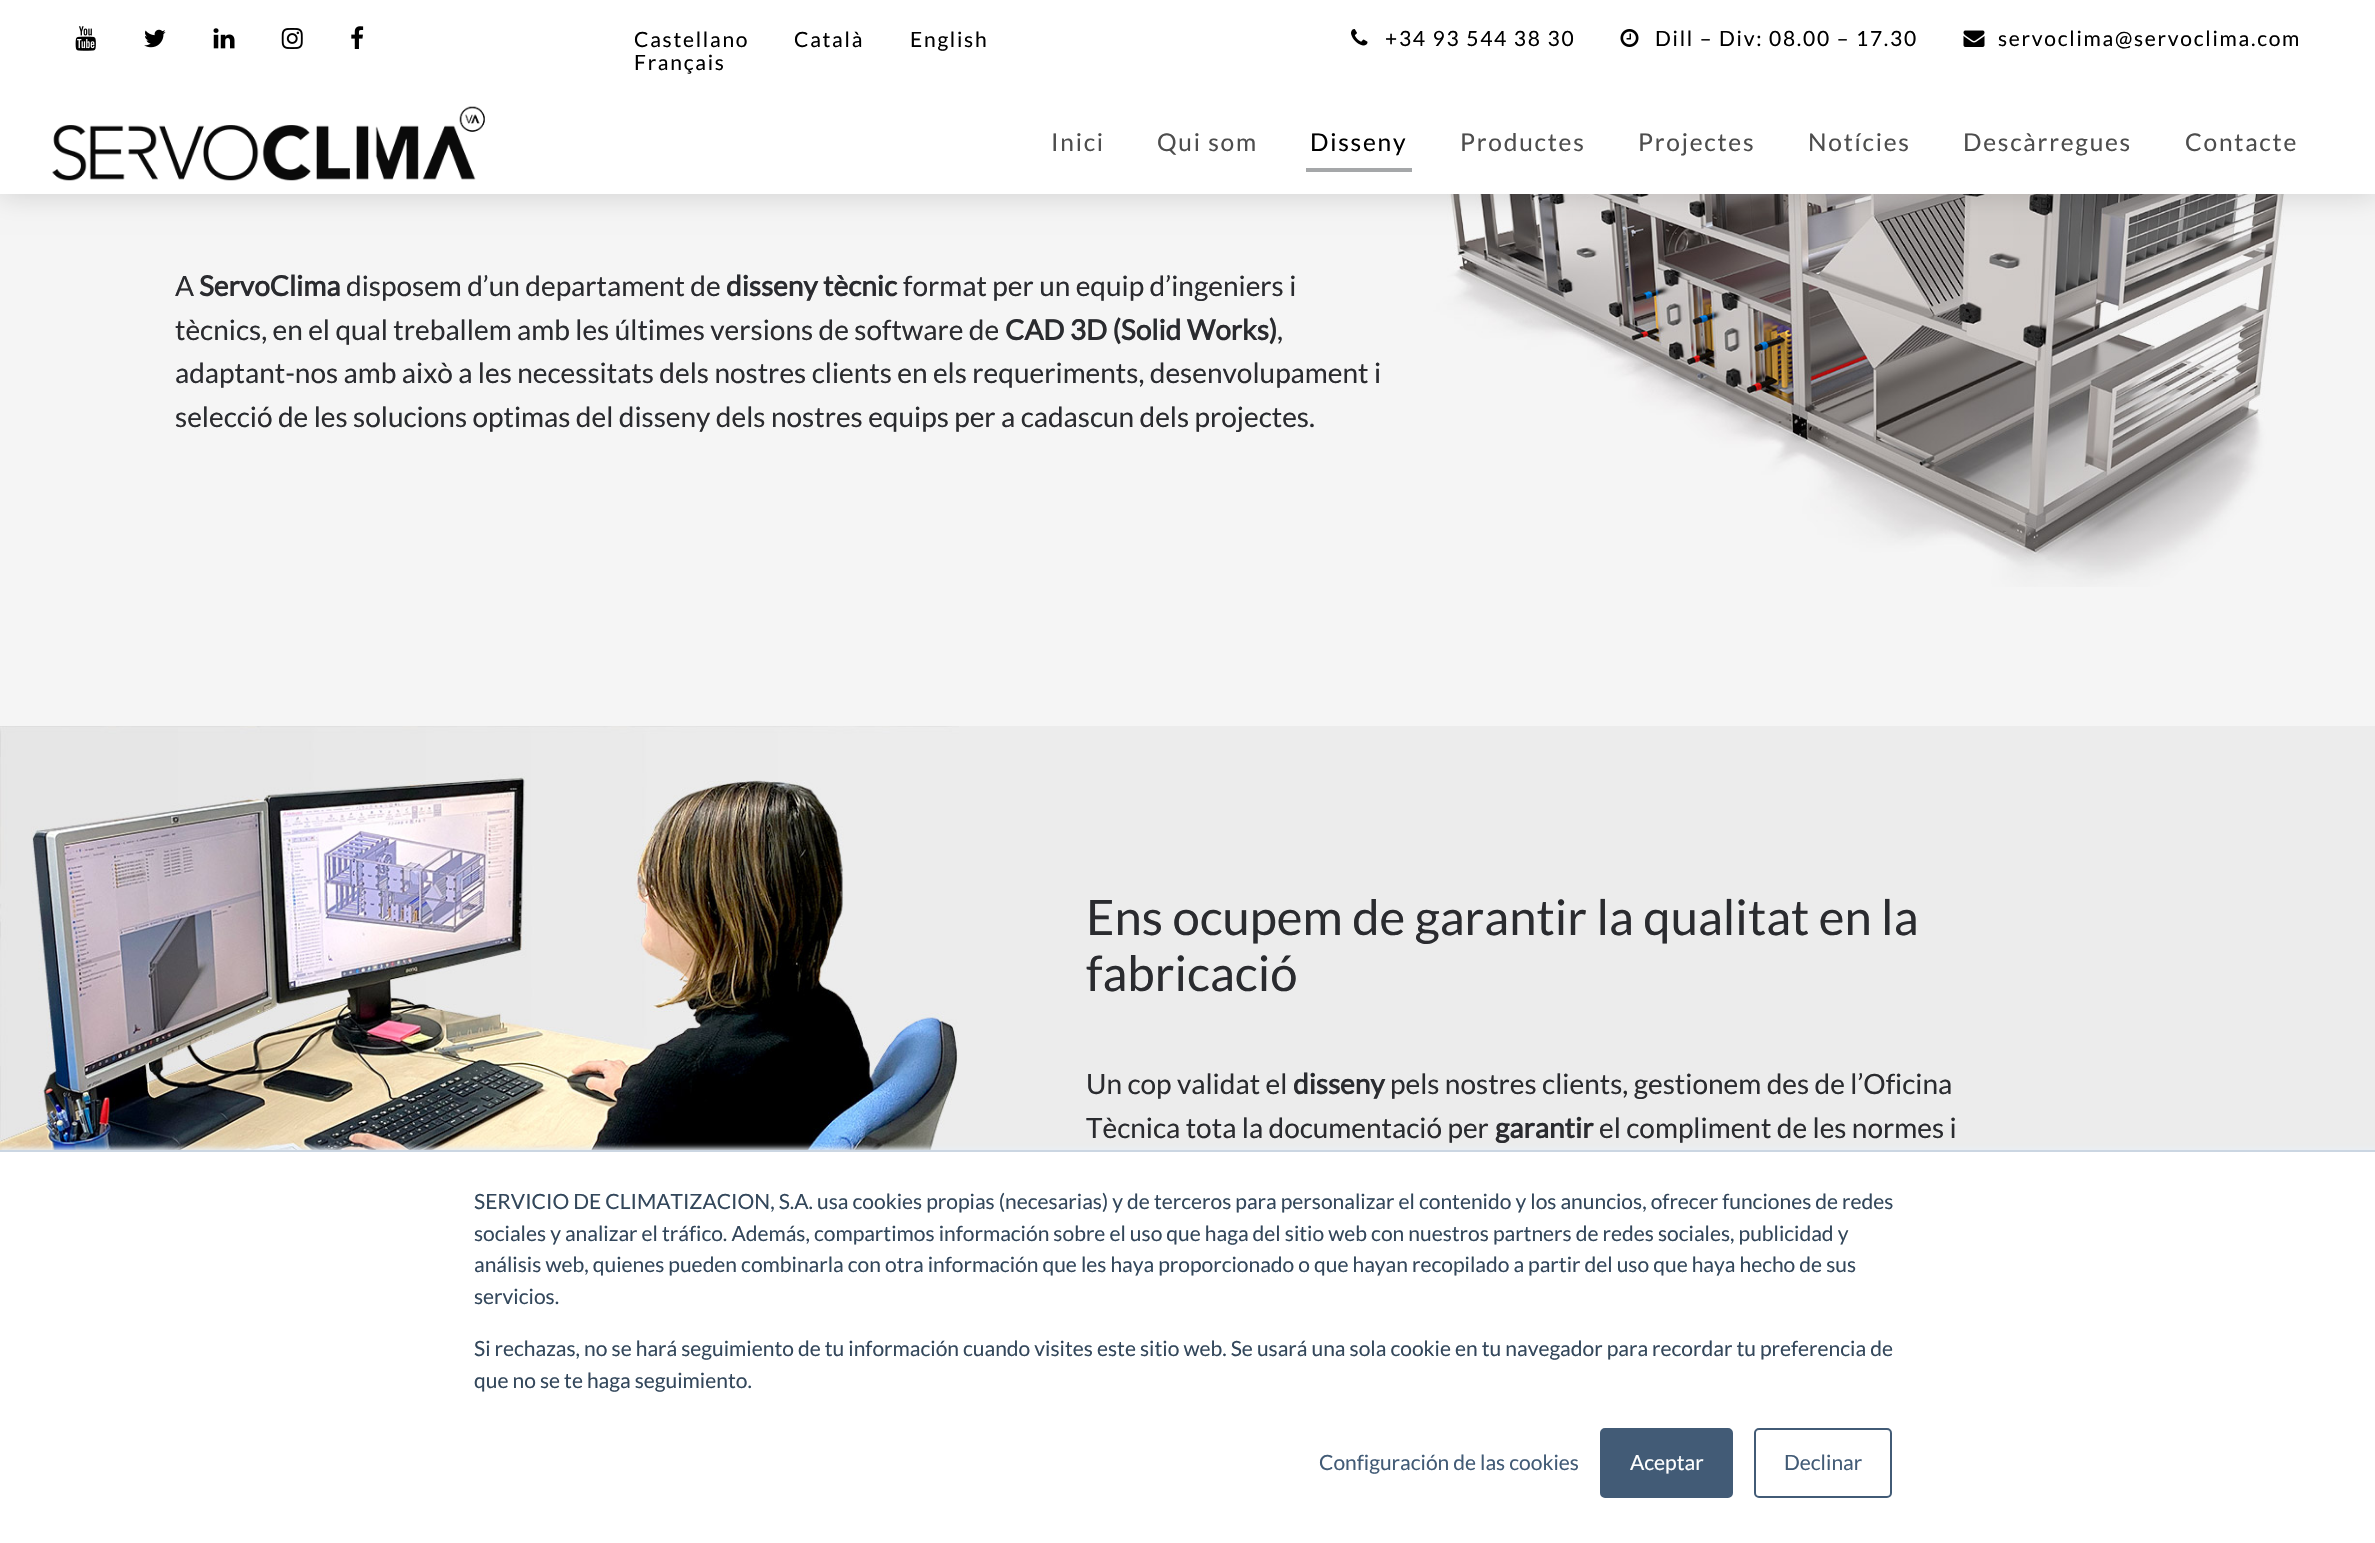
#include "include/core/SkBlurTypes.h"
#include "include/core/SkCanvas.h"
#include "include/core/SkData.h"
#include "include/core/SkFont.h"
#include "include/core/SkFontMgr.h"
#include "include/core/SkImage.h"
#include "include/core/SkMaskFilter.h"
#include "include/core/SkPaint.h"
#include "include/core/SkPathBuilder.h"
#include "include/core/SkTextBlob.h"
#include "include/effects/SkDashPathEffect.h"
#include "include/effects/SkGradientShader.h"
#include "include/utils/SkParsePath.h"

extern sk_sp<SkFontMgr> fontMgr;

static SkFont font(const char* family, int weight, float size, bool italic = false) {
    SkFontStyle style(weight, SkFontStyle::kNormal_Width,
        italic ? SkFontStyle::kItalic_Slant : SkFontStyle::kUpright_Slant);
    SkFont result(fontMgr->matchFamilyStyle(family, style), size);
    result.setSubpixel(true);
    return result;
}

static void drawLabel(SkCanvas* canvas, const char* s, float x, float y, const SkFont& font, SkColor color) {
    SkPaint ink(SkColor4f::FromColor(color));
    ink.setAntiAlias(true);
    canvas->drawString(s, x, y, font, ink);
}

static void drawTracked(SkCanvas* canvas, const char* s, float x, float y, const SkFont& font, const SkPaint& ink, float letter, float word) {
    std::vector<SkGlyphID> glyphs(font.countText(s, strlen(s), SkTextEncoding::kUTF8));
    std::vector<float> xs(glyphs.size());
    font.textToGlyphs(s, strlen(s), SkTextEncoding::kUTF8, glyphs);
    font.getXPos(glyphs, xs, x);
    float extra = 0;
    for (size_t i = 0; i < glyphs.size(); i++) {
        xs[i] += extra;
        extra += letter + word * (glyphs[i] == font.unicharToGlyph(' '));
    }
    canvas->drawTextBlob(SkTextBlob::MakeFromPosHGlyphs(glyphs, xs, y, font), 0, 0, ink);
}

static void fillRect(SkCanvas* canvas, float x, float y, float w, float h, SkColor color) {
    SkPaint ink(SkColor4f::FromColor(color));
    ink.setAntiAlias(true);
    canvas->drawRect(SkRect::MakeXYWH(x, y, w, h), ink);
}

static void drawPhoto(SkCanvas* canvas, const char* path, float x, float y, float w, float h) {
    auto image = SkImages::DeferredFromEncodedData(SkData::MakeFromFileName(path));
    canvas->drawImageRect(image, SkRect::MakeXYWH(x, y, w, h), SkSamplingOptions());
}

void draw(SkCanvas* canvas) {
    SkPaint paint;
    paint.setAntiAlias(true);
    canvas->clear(0xFFF5F5F5);
    drawPhoto(canvas, "assets/img10.png", 1428, 194, 868, 393);
    paint.setColor(0x26000000);
    paint.setMaskFilter(SkMaskFilter::MakeBlur(kNormal_SkBlurStyle, 13));
    canvas->drawRect(SkRect::MakeXYWH(0, 2, 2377, 194), paint);
    paint.setMaskFilter(nullptr);
    fillRect(canvas, 0, 0, 2375, 194, 0xFFFFFFFF);
    drawPhoto(canvas, "assets/img1.png", 75, 26, 21, 25);
    drawPhoto(canvas, "assets/img2.png", 144, 29, 22, 19);
    drawPhoto(canvas, "assets/img3.png", 213, 28, 22, 21);
    drawPhoto(canvas, "assets/img4.png", 281, 28, 22, 21);
    drawPhoto(canvas, "assets/img5.png", 351, 26, 13, 23);
    SkFont font1 = font("Lato", 400, 21);
    paint.setColor(0xFF000000);
    drawTracked(canvas, "Castellano", 634, 47, font1, paint, 1.75f, 0);
    drawTracked(canvas, "Català", 794, 47, font1, paint, 1.75f, 0);
    drawTracked(canvas, "English", 910, 47, font1, paint, 1.75f, 0);
    drawTracked(canvas, "Français", 634, 70, font1, paint, 1.75f, 0);
    drawPhoto(canvas, "assets/img6.png", 1351, 29, 17, 17);
    drawTracked(canvas, "+34 93 544 38 30", 1385, 46, font1, paint, 1.75f, 0);
    drawPhoto(canvas, "assets/img7.png", 1620, 29, 19, 18);
    drawTracked(canvas, "Dill – Div: 08.00 – 17.30", 1655, 46, font1, paint, 1.75f, 0);
    drawPhoto(canvas, "assets/img8.png", 1963, 30, 22, 17);
    drawTracked(canvas, "servoclima@servoclima.com", 1998, 46, font1, paint, 1.75f, 0);
    drawPhoto(canvas, "assets/img9.png", 52, 106, 433, 75);
    SkFont font2 = font("Lato", 400, 24.5f);
    paint.setColor(0xFF4D4D4D);
    drawTracked(canvas, "Inici", 1051, 151, font2, paint, 1.75f, 0);
    drawTracked(canvas, "Qui som", 1157, 151, font2, paint, 1.75f, 0);
    fillRect(canvas, 1306, 168, 106, 4, 0xFFA5A7A9);
    paint.setColor(0xFF000000);
    drawTracked(canvas, "Disseny", 1310, 151, font2, paint, 1.75f, 0);
    paint.setColor(0xFF4D4D4D);
    drawTracked(canvas, "Productes", 1460, 151, font2, paint, 1.75f, 0);
    drawTracked(canvas, "Projectes", 1638, 151, font2, paint, 1.75f, 0);
    drawTracked(canvas, "Notícies", 1808, 151, font2, paint, 1.75f, 0);
    drawTracked(canvas, "Descàrregues", 1963, 151, font2, paint, 1.75f, 0);
    drawTracked(canvas, "Contacte", 2185, 151, font2, paint, 1.75f, 0);
    SkFont font3 = font("Lato", 400, 28);
    drawLabel(canvas, "A", 175, 296, font3, 0xFF2A2B2F);
    SkFont font4 = font("Lato", 700, 28);
    drawLabel(canvas, "ServoClima", 199, 296, font4, 0xFF2A2B2F);
    drawLabel(canvas, "disposem d’un departament de", 346, 296, font3, 0xFF2A2B2F);
    drawLabel(canvas, "disseny tècnic", 726, 296, font4, 0xFF2A2B2F);
    drawLabel(canvas, "format per un equip d’ingeniers i", 903, 296, font3, 0xFF2A2B2F);
    drawLabel(canvas, "tècnics, en el qual treballem amb les últimes versions de software de", 175, 340, font3, 0xFF2A2B2F);
    drawLabel(canvas, "CAD 3D (Solid Works)", 1005, 340, font4, 0xFF2A2B2F);
    drawLabel(canvas, ",", 1277, 340, font3, 0xFF2A2B2F);
    drawLabel(canvas, "adaptant-nos amb això a les necessitats dels nostres clients en els requeriments, desenvolupament i", 175, 383, font3, 0xFF2A2B2F);
    drawLabel(canvas, "selecció de les solucions optimas del disseny dels nostres equips per a cadascun dels projectes.", 175, 427, font3, 0xFF2A2B2F);
    fillRect(canvas, 959, 726, 1416, 424, 0xFFECECEC);
    drawPhoto(canvas, "assets/img11.png", 0, 726, 959, 424);
    SkFont font5 = font("Lato", 400, 49);
    drawLabel(canvas, "Ens ocupem de garantir la qualitat en la", 1086, 935, font5, 0xFF2A2B2F);
    drawLabel(canvas, "fabricació", 1086, 991, font5, 0xFF2A2B2F);
    drawLabel(canvas, "Un cop validat el", 1086, 1094, font3, 0xFF2A2B2F);
    drawLabel(canvas, "disseny", 1293, 1094, font4, 0xFF2A2B2F);
    drawLabel(canvas, "pels nostres clients, gestionem des de l’Oficina", 1390, 1094, font3, 0xFF2A2B2F);
    drawLabel(canvas, "Tècnica tota la documentació per", 1086, 1138, font3, 0xFF2A2B2F);
    drawLabel(canvas, "garantir", 1495, 1138, font4, 0xFF2A2B2F);
    drawLabel(canvas, "el compliment de les normes i", 1599, 1138, font3, 0xFF2A2B2F);
    paint.setColor(0xFFEAF0F6);
    paint.setMaskFilter(SkMaskFilter::MakeBlur(kNormal_SkBlurStyle, 2.5f));
    canvas->drawRect(SkRect::MakeXYWH(0, 1148, 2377, 394), paint);
    paint.setMaskFilter(nullptr);
    fillRect(canvas, 0, 1152, 2375, 391, 0xFFFFFFFF);
    fillRect(canvas, 0, 1150, 2375, 2, 0xFFCBD6E2);
    drawLabel(canvas, "SERVICIO DE CLIMATIZACION, S.A. usa cookies propias (necesarias) y de terceros para personalizar el contenido y los anuncios, ofrecer funciones de redes", 474, 1209, font1, 0xFF33475B);
    drawLabel(canvas, "sociales y analizar el tráfico. Además, compartimos información sobre el uso que haga del sitio web con nuestros partners de redes sociales, publicidad y", 474, 1241, font1, 0xFF33475B);
    drawLabel(canvas, "análisis web, quienes pueden combinarla con otra información que les haya proporcionado o que hayan recopilado a partir del uso que haya hecho de sus", 474, 1272, font1, 0xFF33475B);
    drawLabel(canvas, "servicios.", 474, 1304, font1, 0xFF33475B);
    drawLabel(canvas, "Si rechazas, no se hará seguimiento de tu información cuando visites este sitio web. Se usará una sola cookie en tu navegador para recordar tu preferencia de", 474, 1356, font1, 0xFF33475B);
    drawLabel(canvas, "que no se te haga seguimiento.", 474, 1388, font1, 0xFF33475B);
    drawLabel(canvas, "Configuración de las cookies", 1319, 1470, font1, 0xFF425B76);
    paint.setColor(0xFF425B76);
    canvas->drawRoundRect(SkRect::MakeXYWH(1601, 1429, 131, 68), 4, 4, paint);
    paint.setStroke(true);
    paint.setStrokeWidth(2);
    canvas->drawRoundRect(SkRect::MakeXYWH(1601, 1429, 131, 68), 4, 4, paint);
    drawLabel(canvas, "Aceptar", 1630, 1470, font1, 0xFFFFFFFF);
    canvas->drawRoundRect(SkRect::MakeXYWH(1755, 1429, 136, 68), 4, 4, paint);
    drawLabel(canvas, "Declinar", 1784, 1470, font1, 0xFF425B76);
}
